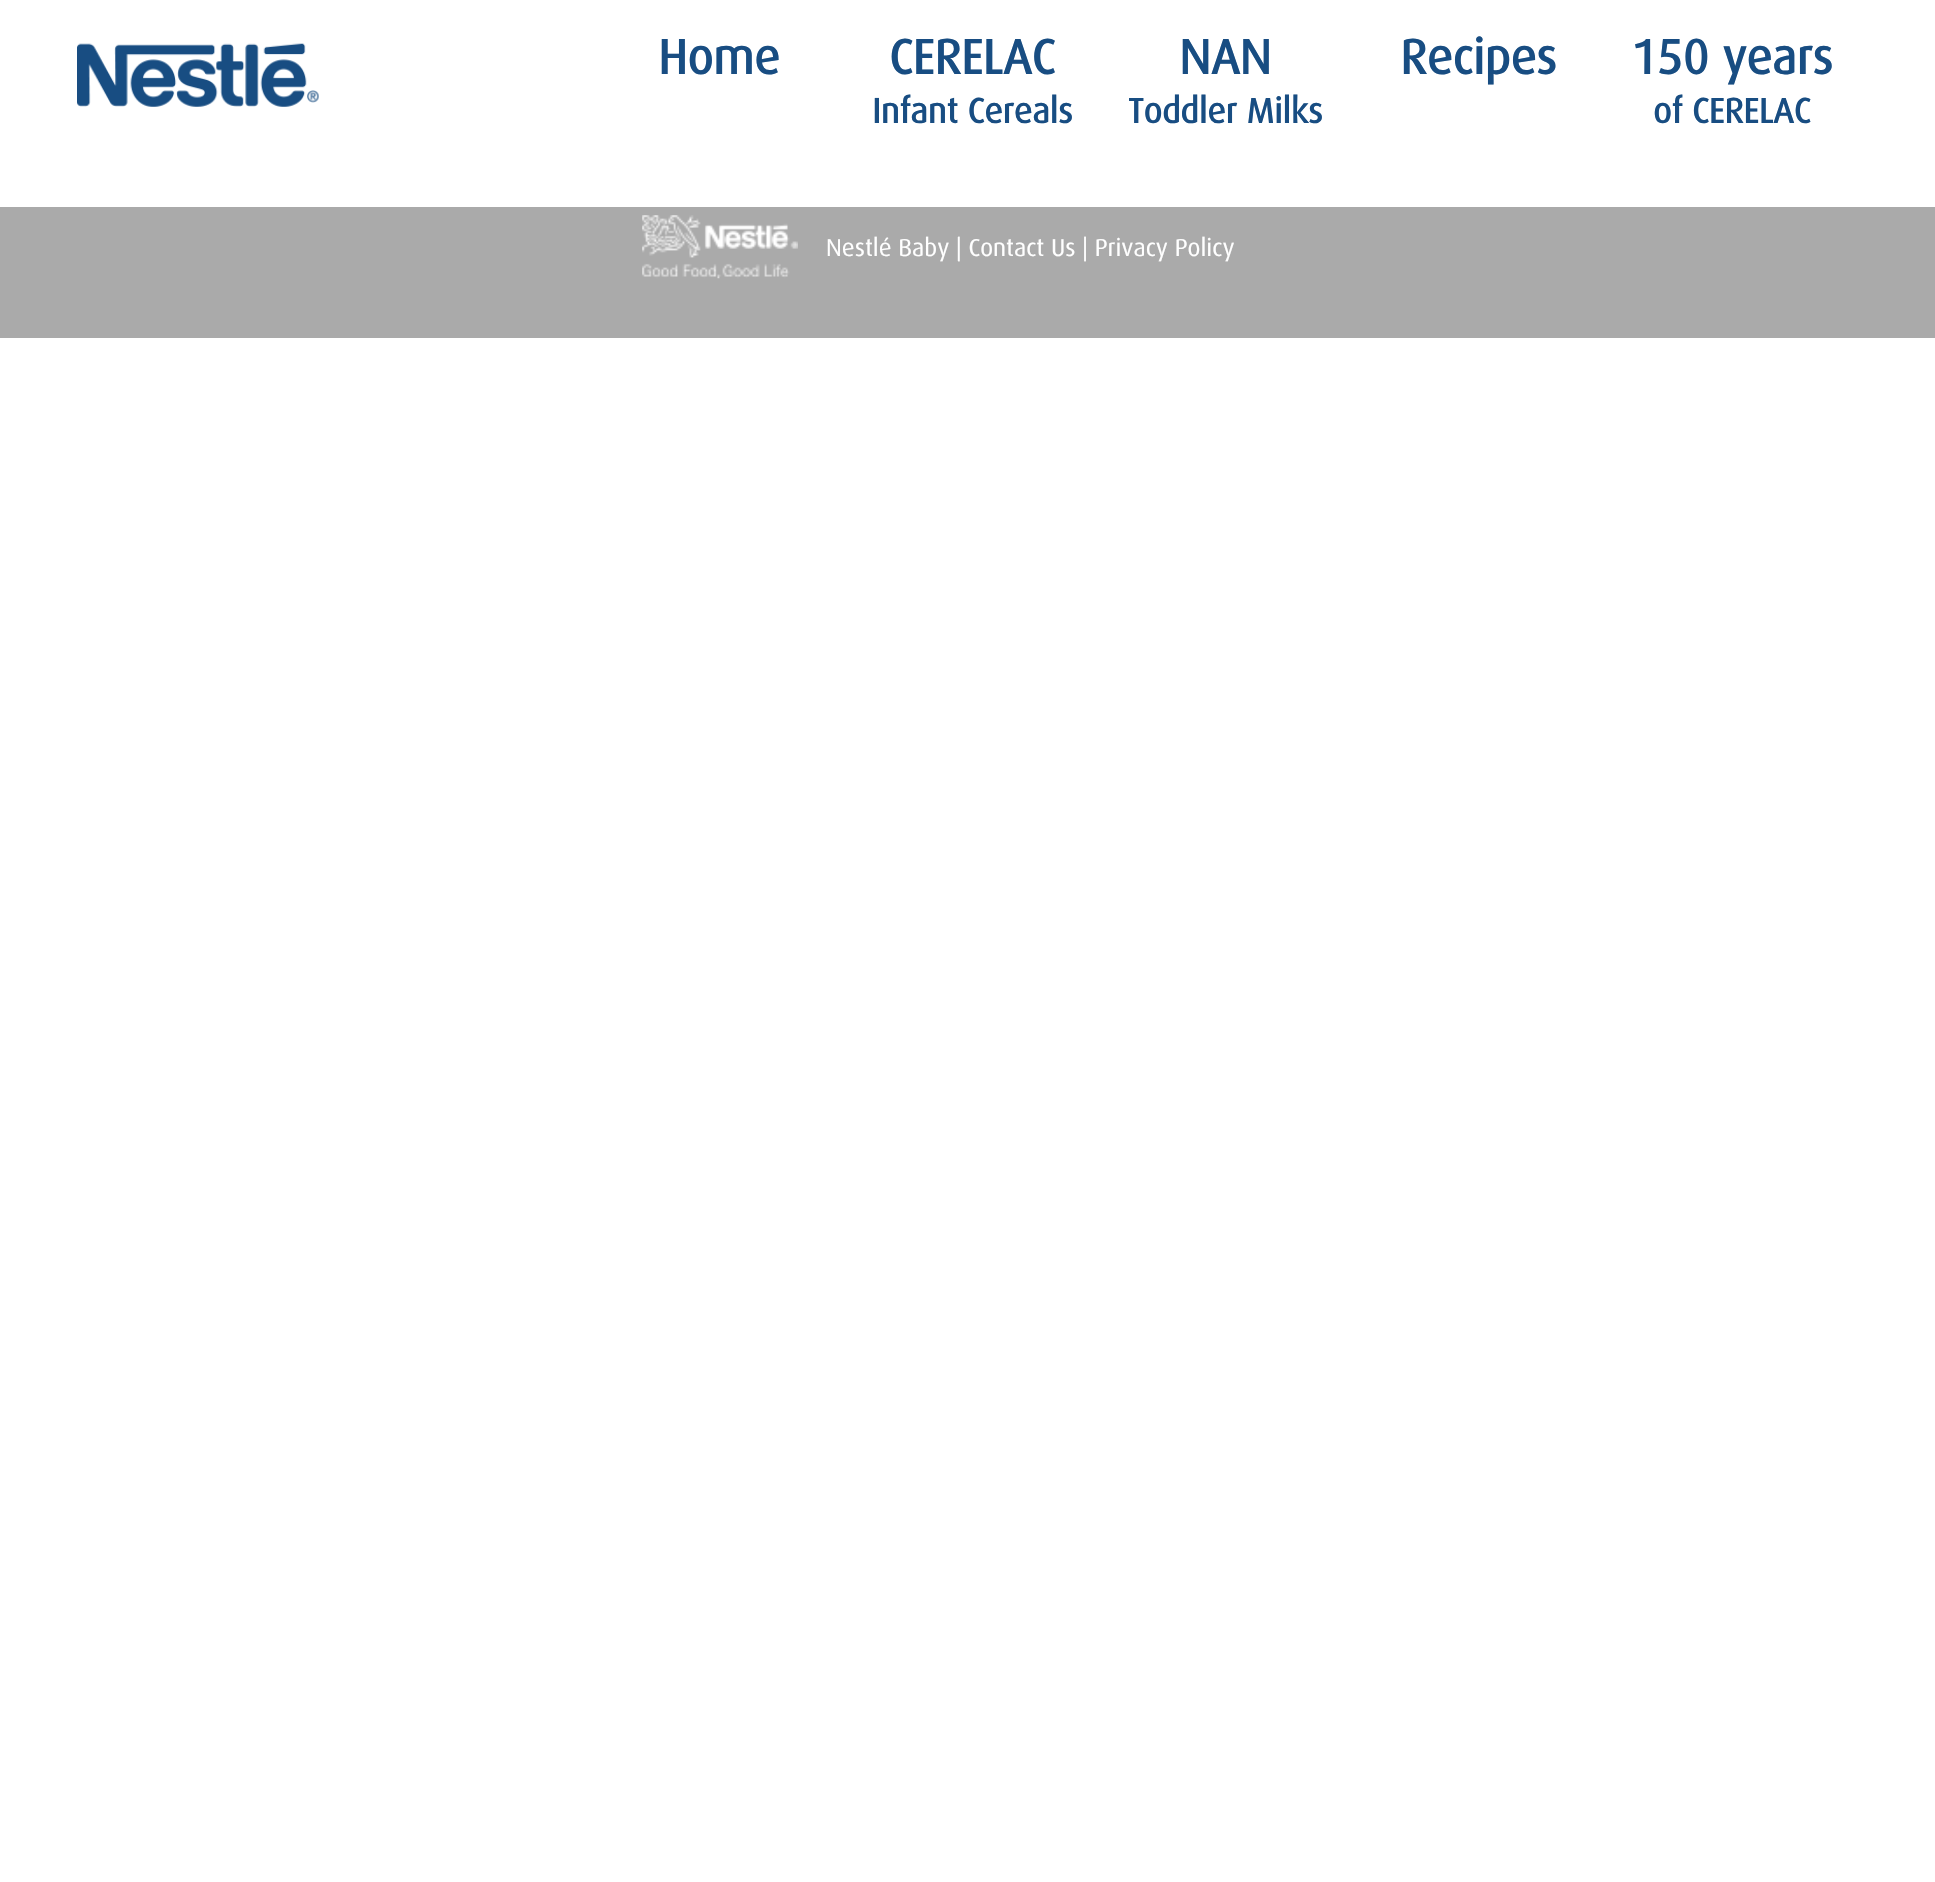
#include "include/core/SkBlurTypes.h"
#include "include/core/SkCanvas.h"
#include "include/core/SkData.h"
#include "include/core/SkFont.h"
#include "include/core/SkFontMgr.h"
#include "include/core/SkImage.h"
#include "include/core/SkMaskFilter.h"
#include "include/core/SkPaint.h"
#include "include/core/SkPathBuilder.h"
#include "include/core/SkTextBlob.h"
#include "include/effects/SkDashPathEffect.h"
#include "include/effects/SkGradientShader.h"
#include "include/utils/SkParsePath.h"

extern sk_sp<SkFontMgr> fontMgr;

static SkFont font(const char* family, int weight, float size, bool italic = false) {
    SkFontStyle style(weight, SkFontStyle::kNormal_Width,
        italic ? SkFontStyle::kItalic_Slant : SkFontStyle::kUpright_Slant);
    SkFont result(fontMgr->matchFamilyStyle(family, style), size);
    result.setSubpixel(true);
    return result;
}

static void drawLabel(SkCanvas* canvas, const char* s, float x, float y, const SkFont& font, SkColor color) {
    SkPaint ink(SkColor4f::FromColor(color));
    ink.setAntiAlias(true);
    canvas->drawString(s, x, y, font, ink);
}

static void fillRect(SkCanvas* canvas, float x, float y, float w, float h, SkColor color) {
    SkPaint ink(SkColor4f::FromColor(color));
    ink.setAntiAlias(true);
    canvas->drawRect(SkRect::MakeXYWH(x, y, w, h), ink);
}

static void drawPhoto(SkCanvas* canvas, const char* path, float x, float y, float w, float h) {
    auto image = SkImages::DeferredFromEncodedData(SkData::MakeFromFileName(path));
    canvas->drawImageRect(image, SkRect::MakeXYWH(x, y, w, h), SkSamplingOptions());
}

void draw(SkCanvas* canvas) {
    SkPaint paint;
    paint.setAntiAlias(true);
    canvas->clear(0xFFFFFFFF);
    drawPhoto(canvas, "assets/img1.png", 77, 43, 242, 64);
    SkFont font1 = font("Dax", 700, 49);
    drawLabel(canvas, "Home", 658, 74, font1, 0xFF184D82);
    drawLabel(canvas, "CERELAC", 889, 74, font1, 0xFF184D82);
    SkFont font2 = font("Dax", 700, 35);
    drawLabel(canvas, "Infant Cereals", 872, 123, font2, 0xFF184D82);
    drawLabel(canvas, "NAN", 1179, 74, font1, 0xFF184D82);
    drawLabel(canvas, "Toddler Milks", 1128, 123, font2, 0xFF184D82);
    drawLabel(canvas, "Recipes", 1400, 74, font1, 0xFF184D82);
    drawLabel(canvas, "150 years", 1631, 74, font1, 0xFF184D82);
    drawLabel(canvas, "of CERELAC", 1653, 123, font2, 0xFF184D82);
    fillRect(canvas, 0, 207, 1935, 131, 0xFFAAAAAA);
    drawPhoto(canvas, "assets/img2.png", 642, 215, 156, 64);
    SkFont font3 = font("Dax", 400, 24.5f);
    drawLabel(canvas, "Nestlé Baby | Contact Us | Privacy Policy", 826, 256, font3, 0xFFFFFFFF);
}
